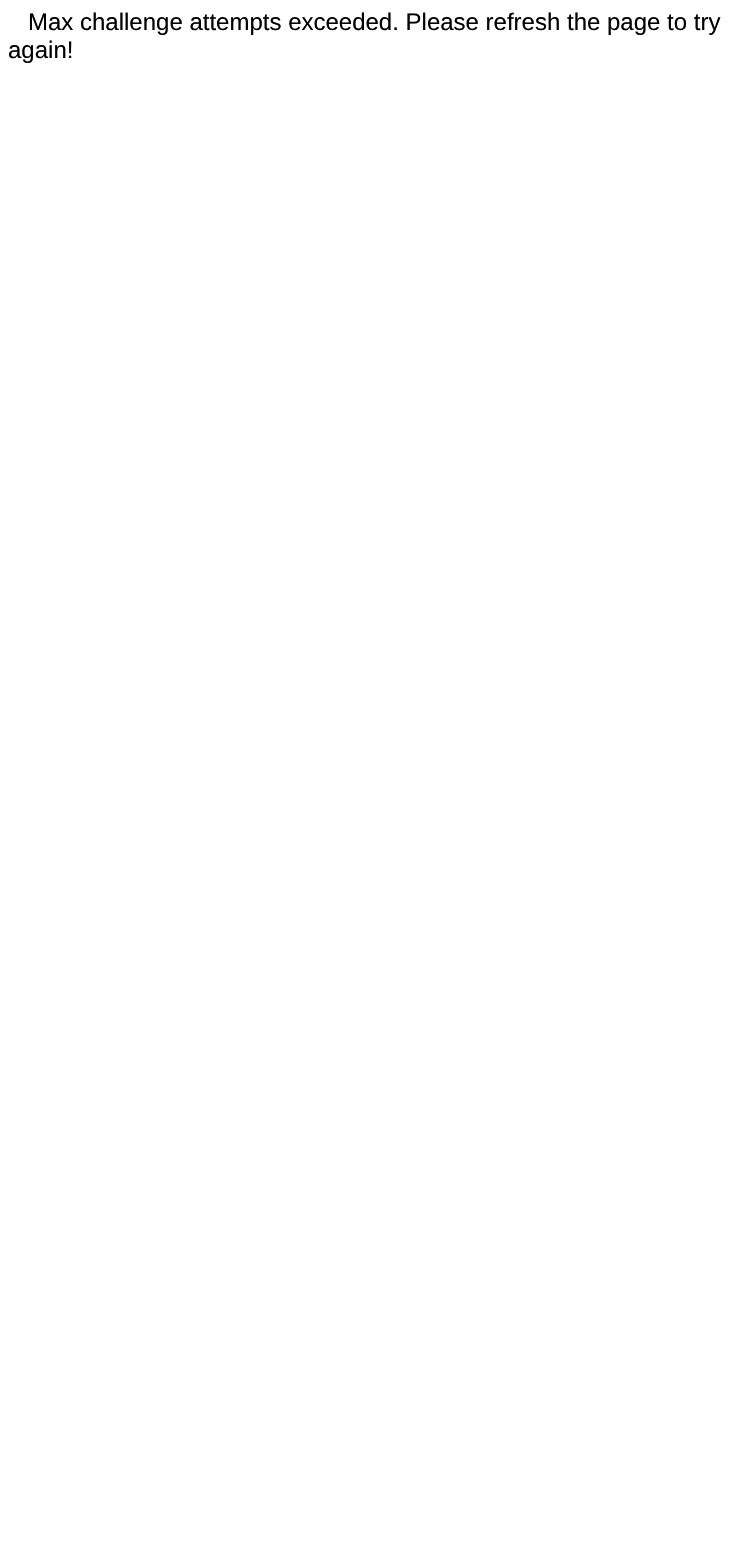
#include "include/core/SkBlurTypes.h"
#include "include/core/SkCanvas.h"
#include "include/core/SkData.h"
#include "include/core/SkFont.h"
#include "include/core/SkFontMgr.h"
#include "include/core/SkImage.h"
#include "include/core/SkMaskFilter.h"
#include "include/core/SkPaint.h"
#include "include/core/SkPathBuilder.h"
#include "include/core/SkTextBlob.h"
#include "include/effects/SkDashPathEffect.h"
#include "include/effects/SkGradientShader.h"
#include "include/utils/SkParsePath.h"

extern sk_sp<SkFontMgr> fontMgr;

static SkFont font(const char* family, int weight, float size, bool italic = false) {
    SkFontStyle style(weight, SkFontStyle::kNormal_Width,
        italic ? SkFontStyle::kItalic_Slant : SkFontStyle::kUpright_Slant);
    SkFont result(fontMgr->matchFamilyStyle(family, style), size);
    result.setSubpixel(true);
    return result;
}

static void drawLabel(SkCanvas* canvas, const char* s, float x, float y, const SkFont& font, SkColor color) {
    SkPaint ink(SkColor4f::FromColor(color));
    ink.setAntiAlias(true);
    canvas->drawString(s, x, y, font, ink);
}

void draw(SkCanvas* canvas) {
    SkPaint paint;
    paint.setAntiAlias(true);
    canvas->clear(0xFFFFFFFF);
    SkFont font1 = font("Liberation Sans", 400, 24);
    drawLabel(canvas, "Max challenge attempts exceeded. Please refresh the page to try", 28, 30, font1, 0xFF000000);
    drawLabel(canvas, "again!", 8, 58, font1, 0xFF000000);
}
